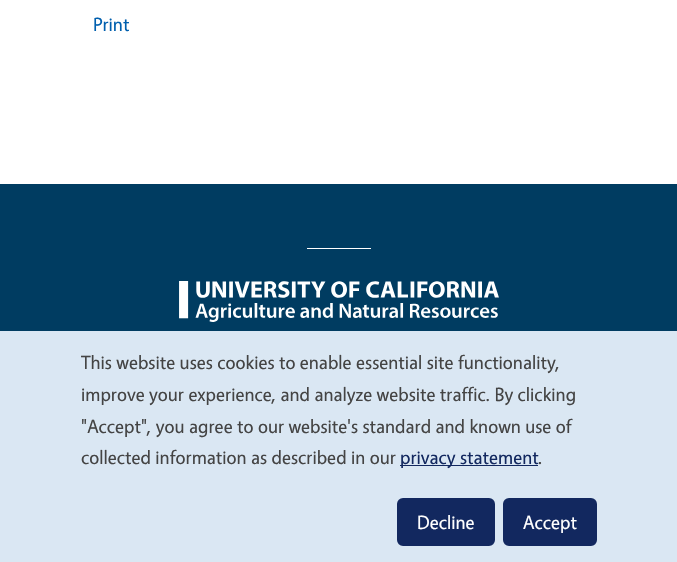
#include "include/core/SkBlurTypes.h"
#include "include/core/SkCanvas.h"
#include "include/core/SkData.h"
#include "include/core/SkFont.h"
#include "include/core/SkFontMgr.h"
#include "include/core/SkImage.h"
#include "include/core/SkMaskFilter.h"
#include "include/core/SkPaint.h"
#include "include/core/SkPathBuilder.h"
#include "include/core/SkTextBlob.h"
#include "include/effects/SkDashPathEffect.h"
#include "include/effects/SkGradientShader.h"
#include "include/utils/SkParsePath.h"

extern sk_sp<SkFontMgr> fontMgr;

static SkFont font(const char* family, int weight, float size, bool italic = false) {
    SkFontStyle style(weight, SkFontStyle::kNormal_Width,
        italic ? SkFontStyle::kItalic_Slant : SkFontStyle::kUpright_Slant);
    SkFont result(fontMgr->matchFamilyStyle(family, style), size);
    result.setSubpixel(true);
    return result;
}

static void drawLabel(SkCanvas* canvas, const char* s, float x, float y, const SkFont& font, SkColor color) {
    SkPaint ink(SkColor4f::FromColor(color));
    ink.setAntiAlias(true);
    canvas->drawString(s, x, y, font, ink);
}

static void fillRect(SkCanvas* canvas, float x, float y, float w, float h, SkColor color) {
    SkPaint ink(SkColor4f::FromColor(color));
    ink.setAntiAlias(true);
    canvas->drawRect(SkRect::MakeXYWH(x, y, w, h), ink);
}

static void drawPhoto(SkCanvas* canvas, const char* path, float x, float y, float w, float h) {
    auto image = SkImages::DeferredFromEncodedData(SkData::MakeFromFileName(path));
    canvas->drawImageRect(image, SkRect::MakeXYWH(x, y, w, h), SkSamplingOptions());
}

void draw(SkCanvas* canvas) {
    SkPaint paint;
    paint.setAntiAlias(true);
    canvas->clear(0xFFFFFFFF);
    SkFont font1 = font("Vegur", 400, 19.2f);
    drawLabel(canvas, "Print", 93, 31, font1, 0xFF005FAE);
    fillRect(canvas, 0, 184, 677, 147, 0xFF003C61);
    fillRect(canvas, 307, 248, 64, 1, 0xFFFFFFFF);
    drawPhoto(canvas, "assets/img1.png", 179, 281, 320, 41);
    fillRect(canvas, 0, 331, 677, 231, 0xFFDAE7F3);
    drawLabel(canvas, "This website uses cookies to enable essential site functionality,", 81, 369, font1, 0xFF444444);
    drawLabel(canvas, "improve your experience, and analyze website traffic. By clicking", 81, 401, font1, 0xFF444444);
    drawLabel(canvas, "\"Accept\", you agree to our website's standard and known use of", 81, 433, font1, 0xFF444444);
    drawLabel(canvas, "collected information as described in our", 81, 464, font1, 0xFF444444);
    fillRect(canvas, 400, 465, 138, 1, 0xFF12285F);
    drawLabel(canvas, "privacy statement", 400, 464, font1, 0xFF12285F);
    drawLabel(canvas, ".", 538, 464, font1, 0xFF444444);
    paint.setColor(0xFF12285F);
    canvas->drawRoundRect(SkRect::MakeXYWH(398.5f, 499.5f, 95, 45), 4.5f, 4.5f, paint);
    paint.setStroke(true);
    paint.setStrokeWidth(3);
    canvas->drawRoundRect(SkRect::MakeXYWH(398.5f, 499.5f, 95, 45), 4.5f, 4.5f, paint);
    drawLabel(canvas, "Decline", 417, 529, font1, 0xFFFFFFFF);
    paint.setStroke(false);
    canvas->drawRoundRect(SkRect::MakeXYWH(504.5f, 499.5f, 91, 45), 4.5f, 4.5f, paint);
    paint.setStroke(true);
    canvas->drawRoundRect(SkRect::MakeXYWH(504.5f, 499.5f, 91, 45), 4.5f, 4.5f, paint);
    drawLabel(canvas, "Accept", 523, 529, font1, 0xFFFFFFFF);
}
